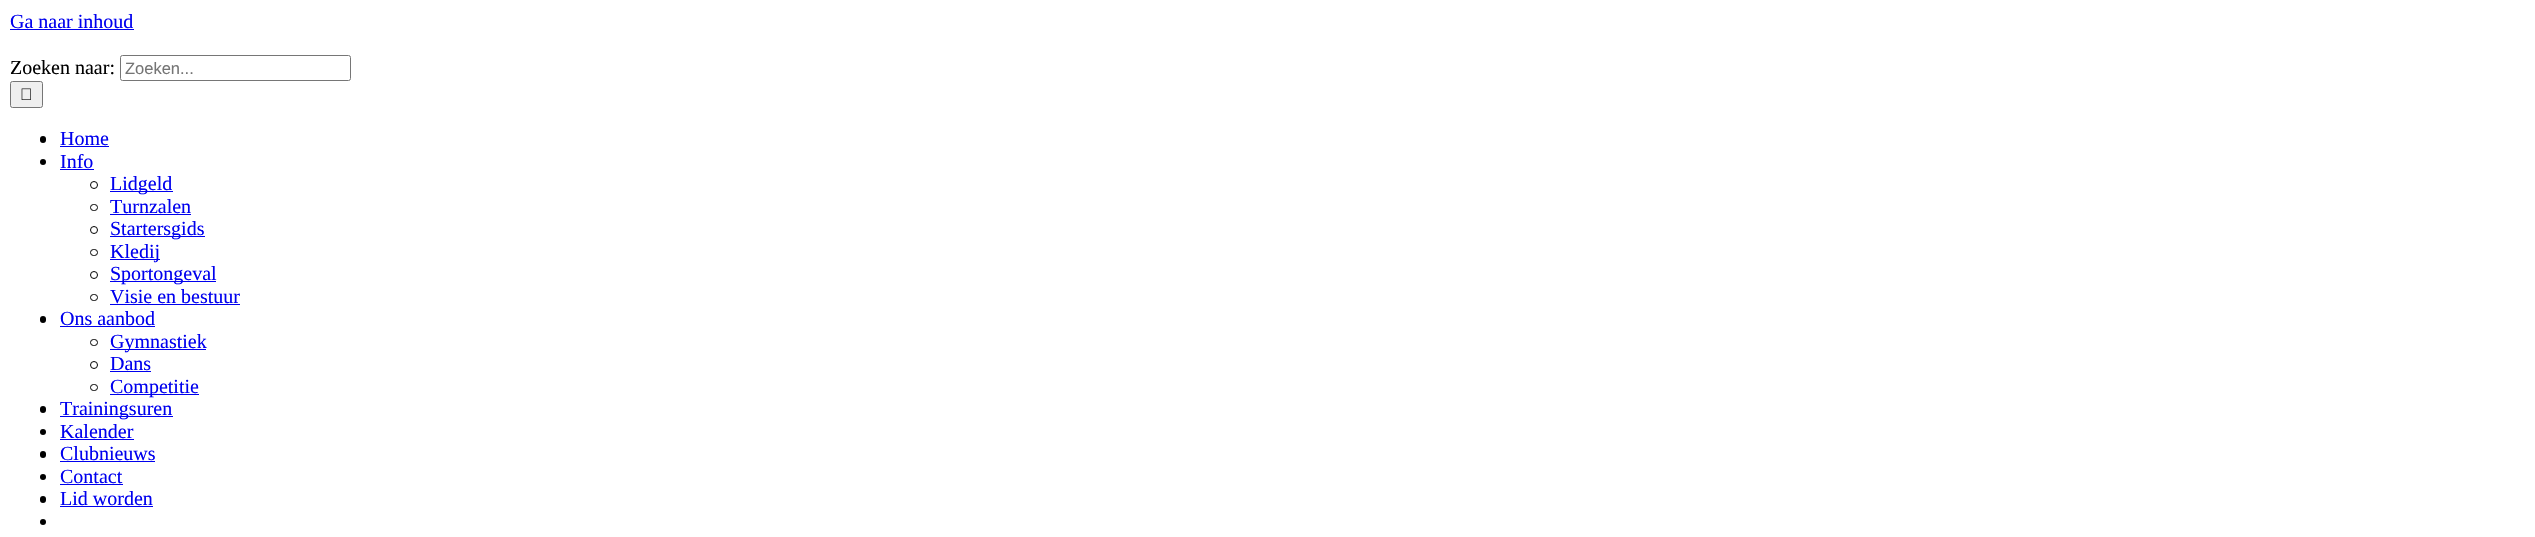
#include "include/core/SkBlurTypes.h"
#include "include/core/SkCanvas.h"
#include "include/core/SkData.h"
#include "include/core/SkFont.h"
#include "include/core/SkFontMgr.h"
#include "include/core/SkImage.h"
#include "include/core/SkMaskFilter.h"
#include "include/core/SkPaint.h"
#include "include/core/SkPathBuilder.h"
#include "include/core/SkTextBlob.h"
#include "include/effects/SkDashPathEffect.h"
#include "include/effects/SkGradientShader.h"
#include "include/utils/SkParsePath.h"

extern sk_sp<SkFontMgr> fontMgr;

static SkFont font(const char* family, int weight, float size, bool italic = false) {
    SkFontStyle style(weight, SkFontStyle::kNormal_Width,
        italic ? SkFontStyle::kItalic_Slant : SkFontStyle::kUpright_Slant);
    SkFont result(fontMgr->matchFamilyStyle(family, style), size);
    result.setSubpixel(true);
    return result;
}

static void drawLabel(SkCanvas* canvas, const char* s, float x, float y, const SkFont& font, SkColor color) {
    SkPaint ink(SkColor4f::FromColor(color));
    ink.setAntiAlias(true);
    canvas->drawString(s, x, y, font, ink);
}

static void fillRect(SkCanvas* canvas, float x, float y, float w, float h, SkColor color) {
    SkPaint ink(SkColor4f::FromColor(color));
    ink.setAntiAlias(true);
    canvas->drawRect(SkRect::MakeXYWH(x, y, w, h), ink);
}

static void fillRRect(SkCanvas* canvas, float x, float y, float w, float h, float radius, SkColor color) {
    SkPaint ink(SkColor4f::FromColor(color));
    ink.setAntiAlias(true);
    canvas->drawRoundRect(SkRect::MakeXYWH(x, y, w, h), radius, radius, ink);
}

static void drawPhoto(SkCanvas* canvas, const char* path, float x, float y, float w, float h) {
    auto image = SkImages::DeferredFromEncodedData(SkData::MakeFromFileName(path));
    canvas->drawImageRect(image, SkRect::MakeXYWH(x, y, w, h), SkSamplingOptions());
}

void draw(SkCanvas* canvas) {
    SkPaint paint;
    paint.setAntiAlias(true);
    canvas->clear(0xFFFFFFFF);
    SkFont font1 = font("Liberation Serif", 400, 20);
    drawLabel(canvas, "Ga naar inhoud", 10, 28, font1, 0xFF0000EE);
    fillRect(canvas, 10, 29, 124, 1, 0xFF0000EE);
    drawLabel(canvas, "Zoeken naar:", 10, 74, font1, 0xFF000000);
    paint.setStroke(true);
    paint.setStrokeWidth(1);
    paint.setColor(0xFF767676);
    canvas->drawRoundRect(SkRect::MakeXYWH(120.5f, 55.5f, 230, 25), 2, 2, paint);
    SkFont font2 = font("Liberation Sans", 400, 16.5f);
    drawLabel(canvas, "Zoeken...", 125, 74, font2, 0xFF757575);
    paint.setStroke(false);
    paint.setColor(0xFFEFEFEF);
    canvas->drawRoundRect(SkRect::MakeXYWH(10.5f, 81.5f, 32, 26), 2, 2, paint);
    paint.setStroke(true);
    paint.setColor(0xFF767676);
    canvas->drawRoundRect(SkRect::MakeXYWH(10.5f, 81.5f, 32, 26), 2, 2, paint);
    drawPhoto(canvas, "assets/img1.png", 21, 88, 10, 12);
    fillRRect(canvas, 40, 136, 6, 7, 3, 0xFF000000);
    drawLabel(canvas, "Home", 60, 145, font1, 0xFF0000EE);
    fillRect(canvas, 60, 146, 49, 1, 0xFF0000EE);
    paint.setStroke(false);
    paint.setColor(0xFF000000);
    canvas->drawCircle(43, 162, 3, paint);
    drawLabel(canvas, "Info", 60, 168, font1, 0xFF0000EE);
    fillRect(canvas, 60, 169, 34, 1, 0xFF0000EE);
    paint.setStroke(true);
    canvas->drawCircle(94, 185, 3.5f, paint);
    fillRect(canvas, 110, 191, 63, 1, 0xFF0000EE);
    drawLabel(canvas, "Lidgeld", 110, 190, font1, 0xFF0000EE);
    canvas->drawRoundRect(SkRect::MakeXYWH(90.5f, 204.5f, 7, 6), 3, 3, paint);
    drawLabel(canvas, "Turnzalen", 110, 213, font1, 0xFF0000EE);
    fillRect(canvas, 110, 214, 81, 1, 0xFF0000EE);
    canvas->drawCircle(94, 230, 3.5f, paint);
    fillRect(canvas, 110, 236, 95, 1, 0xFF0000EE);
    drawLabel(canvas, "Startersgids", 110, 235, font1, 0xFF0000EE);
    canvas->drawRoundRect(SkRect::MakeXYWH(90.5f, 249.5f, 7, 6), 3, 3, paint);
    fillRect(canvas, 110, 259, 50, 1, 0xFF0000EE);
    drawLabel(canvas, "Kledij", 110, 258, font1, 0xFF0000EE);
    canvas->drawCircle(94, 275, 3.5f, paint);
    fillRect(canvas, 110, 281, 106, 1, 0xFF0000EE);
    drawLabel(canvas, "Sportongeval", 110, 280, font1, 0xFF0000EE);
    canvas->drawRoundRect(SkRect::MakeXYWH(90.5f, 294.5f, 7, 6), 3, 3, paint);
    drawLabel(canvas, "Visie en bestuur", 110, 303, font1, 0xFF0000EE);
    fillRect(canvas, 110, 304, 130, 1, 0xFF0000EE);
    fillRRect(canvas, 40, 316, 6, 7, 3, 0xFF000000);
    drawLabel(canvas, "Ons aanbod", 60, 325, font1, 0xFF0000EE);
    fillRect(canvas, 60, 326, 95, 1, 0xFF0000EE);
    canvas->drawRoundRect(SkRect::MakeXYWH(90.5f, 339.5f, 7, 6), 3, 3, paint);
    fillRect(canvas, 110, 349, 96, 1, 0xFF0000EE);
    drawLabel(canvas, "Gymnastiek", 110, 348, font1, 0xFF0000EE);
    canvas->drawCircle(94, 365, 3.5f, paint);
    drawLabel(canvas, "Dans", 110, 370, font1, 0xFF0000EE);
    fillRect(canvas, 110, 371, 41, 1, 0xFF0000EE);
    canvas->drawRoundRect(SkRect::MakeXYWH(90.5f, 384.5f, 7, 6), 3, 3, paint);
    fillRect(canvas, 110, 394, 89, 1, 0xFF0000EE);
    drawLabel(canvas, "Competitie", 110, 393, font1, 0xFF0000EE);
    fillRRect(canvas, 40, 406, 6, 7, 3, 0xFF000000);
    fillRect(canvas, 60, 416, 113, 1, 0xFF0000EE);
    drawLabel(canvas, "Trainingsuren", 60, 415, font1, 0xFF0000EE);
    paint.setStroke(false);
    canvas->drawCircle(43, 432, 3, paint);
    drawLabel(canvas, "Kalender", 60, 438, font1, 0xFF0000EE);
    fillRect(canvas, 60, 439, 74, 1, 0xFF0000EE);
    fillRRect(canvas, 40, 451, 6, 7, 3, 0xFF000000);
    drawLabel(canvas, "Clubnieuws", 60, 460, font1, 0xFF0000EE);
    fillRect(canvas, 60, 461, 95, 1, 0xFF0000EE);
    canvas->drawCircle(43, 477, 3, paint);
    drawLabel(canvas, "Contact", 60, 483, font1, 0xFF0000EE);
    fillRect(canvas, 60, 484, 63, 1, 0xFF0000EE);
    fillRRect(canvas, 40, 496, 6, 7, 3, 0xFF000000);
    drawLabel(canvas, "Lid worden", 60, 505, font1, 0xFF0000EE);
    fillRect(canvas, 60, 506, 93, 1, 0xFF0000EE);
    canvas->drawCircle(43, 522, 3, paint);
}
